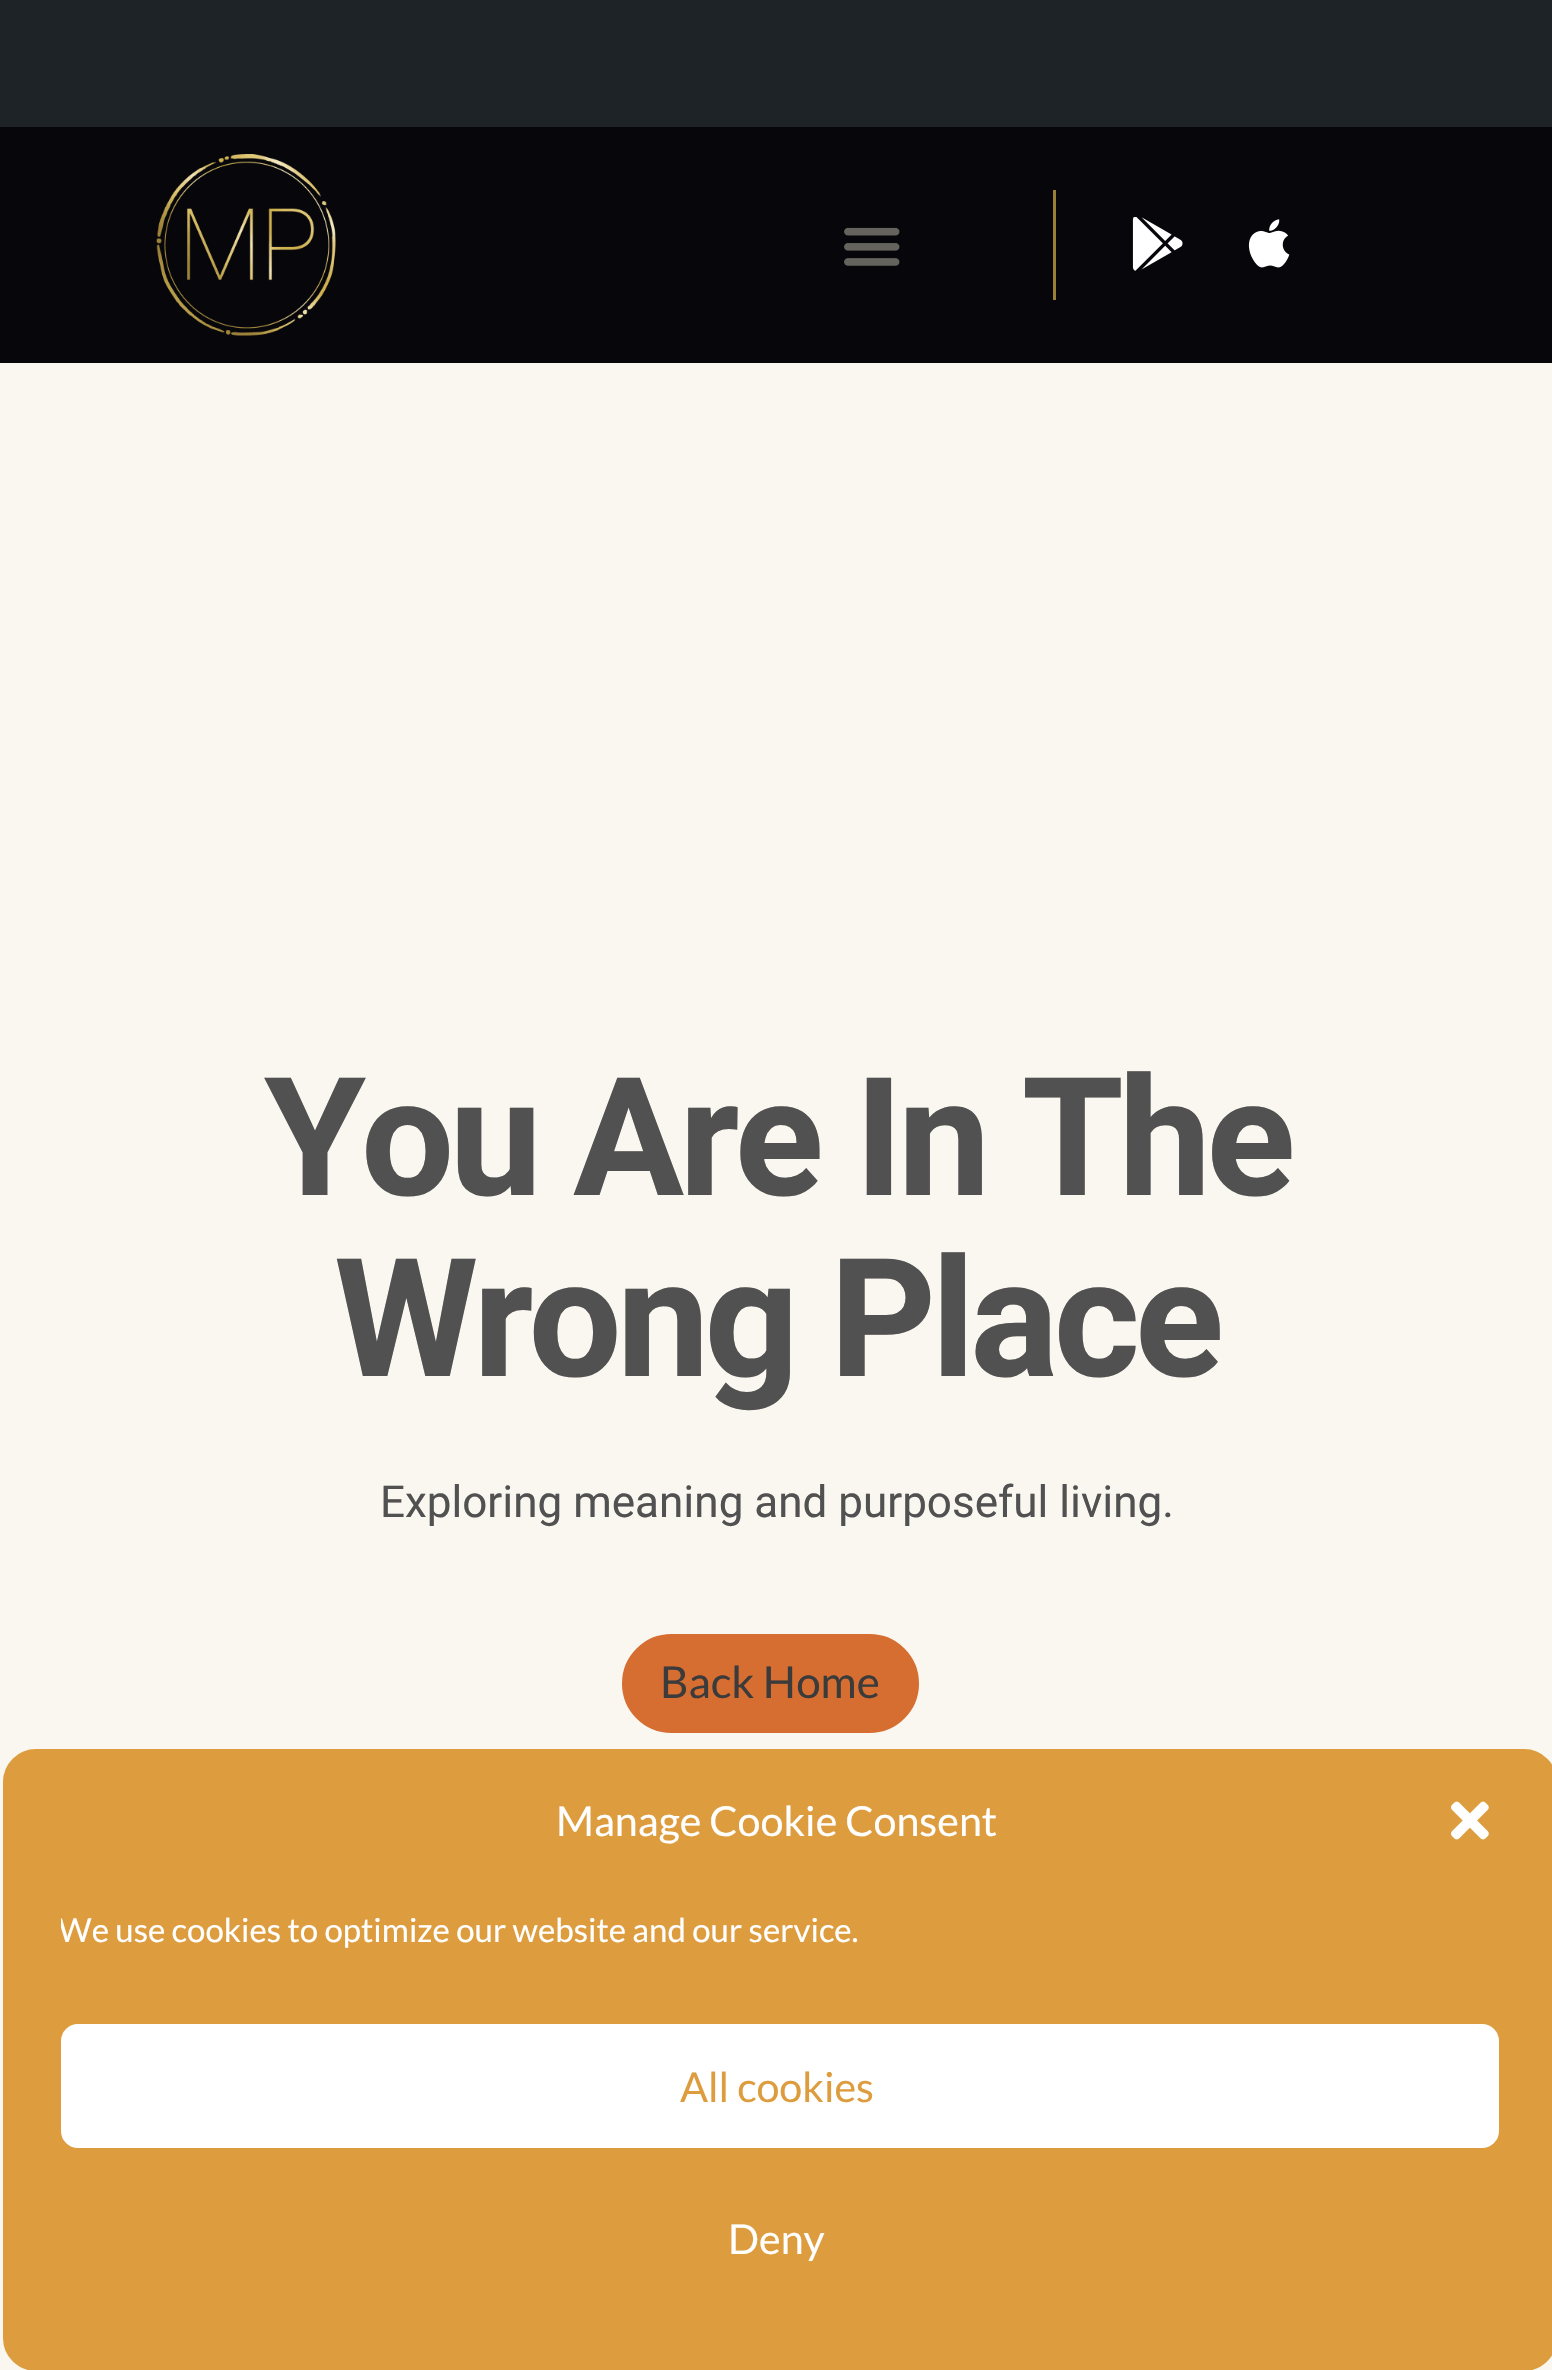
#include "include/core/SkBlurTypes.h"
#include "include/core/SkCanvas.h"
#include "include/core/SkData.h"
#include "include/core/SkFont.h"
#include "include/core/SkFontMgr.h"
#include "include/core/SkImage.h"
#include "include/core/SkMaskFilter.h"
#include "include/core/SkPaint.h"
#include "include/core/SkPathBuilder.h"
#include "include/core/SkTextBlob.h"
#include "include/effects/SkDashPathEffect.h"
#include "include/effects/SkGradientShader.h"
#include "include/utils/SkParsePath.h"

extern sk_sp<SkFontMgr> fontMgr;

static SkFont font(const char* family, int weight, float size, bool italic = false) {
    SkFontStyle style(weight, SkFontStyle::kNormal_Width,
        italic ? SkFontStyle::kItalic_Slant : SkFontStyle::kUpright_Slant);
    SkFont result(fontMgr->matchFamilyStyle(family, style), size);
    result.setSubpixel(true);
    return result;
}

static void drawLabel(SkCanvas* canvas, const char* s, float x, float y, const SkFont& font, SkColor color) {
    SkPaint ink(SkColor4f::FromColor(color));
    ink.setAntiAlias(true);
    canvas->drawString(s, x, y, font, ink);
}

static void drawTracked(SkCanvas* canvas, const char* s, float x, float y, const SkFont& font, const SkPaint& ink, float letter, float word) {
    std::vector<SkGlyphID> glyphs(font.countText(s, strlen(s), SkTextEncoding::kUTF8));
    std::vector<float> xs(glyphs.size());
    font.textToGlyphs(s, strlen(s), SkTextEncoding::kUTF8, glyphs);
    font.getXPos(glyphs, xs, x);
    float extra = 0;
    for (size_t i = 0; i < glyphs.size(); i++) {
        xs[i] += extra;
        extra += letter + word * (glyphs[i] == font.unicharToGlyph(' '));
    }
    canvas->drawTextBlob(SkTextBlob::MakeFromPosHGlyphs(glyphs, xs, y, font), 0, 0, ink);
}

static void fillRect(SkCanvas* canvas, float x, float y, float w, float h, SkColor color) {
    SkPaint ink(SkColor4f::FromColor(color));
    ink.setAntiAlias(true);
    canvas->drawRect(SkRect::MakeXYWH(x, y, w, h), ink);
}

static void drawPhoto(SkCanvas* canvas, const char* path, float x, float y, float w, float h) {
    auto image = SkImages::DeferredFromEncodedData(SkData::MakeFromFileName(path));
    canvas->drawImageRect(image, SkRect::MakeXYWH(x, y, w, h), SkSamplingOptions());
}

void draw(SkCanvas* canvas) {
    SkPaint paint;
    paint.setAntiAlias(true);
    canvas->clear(0xFFFAF7F0);
    fillRect(canvas, 0, 0, 1552, 127, 0xFF1D2327);
    fillRect(canvas, 0, 127, 1552, 236, 0xFF06060B);
    drawPhoto(canvas, "assets/img1.png", 156, 154, 180, 182);
    drawPhoto(canvas, "assets/img2.png", 844, 227, 56, 39);
    fillRect(canvas, 1053, 190, 3, 110, 0xFF9A7F37);
    drawPhoto(canvas, "assets/img3.png", 1132, 217, 51, 54);
    drawPhoto(canvas, "assets/img4.png", 1248, 219, 42, 49);
    SkFont font1 = font("Heebo", 700, 165);
    paint.setColor(0xFF515151);
    drawTracked(canvas, "You Are In The", 264, 1195, font1, paint, -5, 0);
    drawTracked(canvas, "Wrong Place", 334, 1376, font1, paint, -5, 0);
    SkFont font2 = font("Heebo", 400, 44);
    drawLabel(canvas, "Exploring meaning and purposeful living.", 380, 1517, font2, 0xFF515151);
    paint.setColor(0xFFD66D31);
    canvas->drawRoundRect(SkRect::MakeXYWH(625, 1637, 291, 93), 46.5f, 46.5f, paint);
    paint.setStroke(true);
    paint.setStrokeWidth(6);
    canvas->drawRoundRect(SkRect::MakeXYWH(625, 1637, 291, 93), 46.5f, 46.5f, paint);
    SkFont font3 = font("Lato", 400, 44);
    drawLabel(canvas, "Back Home", 660, 1698, font3, 0xFF3B3B3B);
    paint.setStroke(false);
    paint.setColor(0xFFDD9D3E);
    canvas->drawRoundRect(SkRect::MakeXYWH(4.5f, 1750.5f, 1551, 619), 31.5f, 31.5f, paint);
    paint.setStroke(true);
    paint.setStrokeWidth(3);
    canvas->drawRoundRect(SkRect::MakeXYWH(4.5f, 1750.5f, 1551, 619), 31.5f, 31.5f, paint);
    SkFont font4 = font("Lato", 400, 41.25f);
    drawLabel(canvas, "Manage Cookie Consent", 556, 1836, font4, 0xFFFFFFFF);
    drawPhoto(canvas, "assets/img5.png", 1451, 1801, 38, 39);
    canvas->save();
    canvas->clipRect(SkRect::MakeXYWH(61, 1906, 1438, 63));
    SkFont font5 = font("Lato", 400, 33);
    drawLabel(canvas, "We use cookies to optimize our website and our service.", 58, 1942, font5, 0xFFFFFFFF);
    canvas->restore();
    paint.setStroke(false);
    paint.setColor(0xFFFFFFFF);
    canvas->drawRoundRect(SkRect::MakeXYWH(62.5f, 2025.5f, 1435, 121), 15.5f, 15.5f, paint);
    paint.setStroke(true);
    canvas->drawRoundRect(SkRect::MakeXYWH(62.5f, 2025.5f, 1435, 121), 15.5f, 15.5f, paint);
    drawLabel(canvas, "All cookies", 680, 2102, font4, 0xFFDD9D3E);
    drawLabel(canvas, "Deny", 728, 2254, font4, 0xFFFFFFFF);
}
